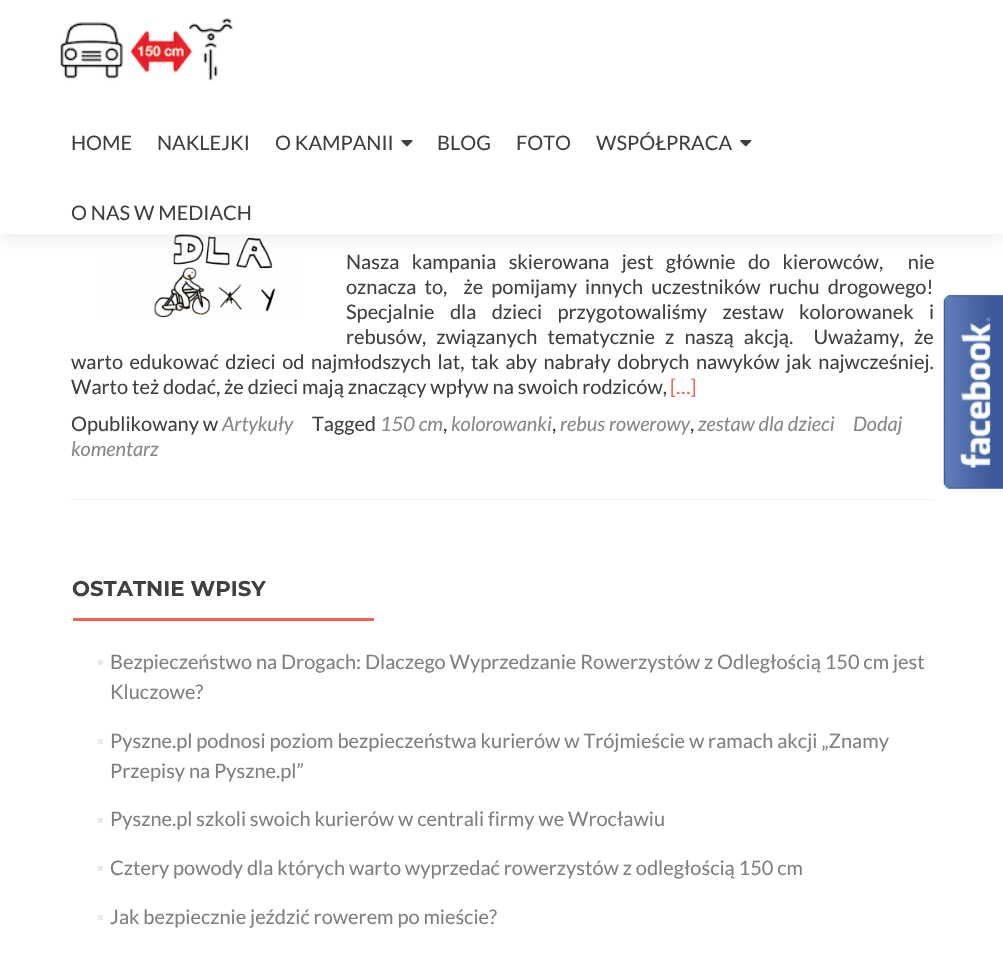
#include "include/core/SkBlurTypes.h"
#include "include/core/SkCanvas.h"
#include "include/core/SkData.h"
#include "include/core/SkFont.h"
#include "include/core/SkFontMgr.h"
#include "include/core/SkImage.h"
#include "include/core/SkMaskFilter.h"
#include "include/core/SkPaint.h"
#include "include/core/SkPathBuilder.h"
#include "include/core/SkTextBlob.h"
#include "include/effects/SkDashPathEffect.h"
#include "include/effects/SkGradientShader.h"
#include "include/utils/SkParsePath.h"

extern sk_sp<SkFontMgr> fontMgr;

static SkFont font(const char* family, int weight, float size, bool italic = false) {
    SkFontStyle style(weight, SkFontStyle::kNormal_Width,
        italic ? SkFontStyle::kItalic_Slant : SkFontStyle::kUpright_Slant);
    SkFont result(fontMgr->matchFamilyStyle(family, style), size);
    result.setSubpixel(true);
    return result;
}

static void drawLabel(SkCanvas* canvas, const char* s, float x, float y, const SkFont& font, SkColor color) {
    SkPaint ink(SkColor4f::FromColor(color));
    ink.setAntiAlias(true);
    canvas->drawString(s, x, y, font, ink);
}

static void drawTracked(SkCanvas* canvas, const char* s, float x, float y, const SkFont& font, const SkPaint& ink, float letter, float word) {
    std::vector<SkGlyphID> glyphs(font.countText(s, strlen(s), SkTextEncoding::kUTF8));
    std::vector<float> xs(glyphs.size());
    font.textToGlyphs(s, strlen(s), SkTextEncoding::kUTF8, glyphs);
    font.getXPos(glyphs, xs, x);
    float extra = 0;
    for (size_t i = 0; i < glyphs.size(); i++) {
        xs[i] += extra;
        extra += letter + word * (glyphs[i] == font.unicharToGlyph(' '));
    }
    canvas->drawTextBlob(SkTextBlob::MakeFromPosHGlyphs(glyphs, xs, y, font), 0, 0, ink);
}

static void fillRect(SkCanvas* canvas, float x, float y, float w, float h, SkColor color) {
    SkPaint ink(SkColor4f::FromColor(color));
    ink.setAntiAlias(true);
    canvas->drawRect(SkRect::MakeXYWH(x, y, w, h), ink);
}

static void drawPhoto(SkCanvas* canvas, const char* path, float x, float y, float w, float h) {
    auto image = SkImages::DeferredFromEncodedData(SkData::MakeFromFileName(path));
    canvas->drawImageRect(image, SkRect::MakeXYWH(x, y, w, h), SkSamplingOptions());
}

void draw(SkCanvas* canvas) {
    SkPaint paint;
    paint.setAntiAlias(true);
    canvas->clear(0xFFFFFFFF);
    drawPhoto(canvas, "assets/img4.png", 100, 234, 200, 84);
    paint.setColor(0x14323232);
    paint.setMaskFilter(SkMaskFilter::MakeBlur(kNormal_SkBlurStyle, 7));
    canvas->drawRect(SkRect::MakeXYWH(0, 6, 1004, 234), paint);
    paint.setMaskFilter(nullptr);
    fillRect(canvas, 0, 0, 1003, 234, 0xFFFFFFFF);
    drawPhoto(canvas, "assets/img1.png", 59, 17, 174, 64);
    SkFont font1 = font("Lato", 400, 20);
    drawLabel(canvas, "HOME", 71, 150, font1, 0xFF404040);
    drawLabel(canvas, "NAKLEJKI", 157, 150, font1, 0xFF404040);
    drawLabel(canvas, "O KAMPANII", 275, 150, font1, 0xFF404040);
    drawPhoto(canvas, "assets/img2.png", 401, 140, 12, 7);
    drawLabel(canvas, "BLOG", 437, 150, font1, 0xFF404040);
    drawLabel(canvas, "FOTO", 516, 150, font1, 0xFF404040);
    drawLabel(canvas, "WSPÓŁPRACA", 596, 150, font1, 0xFF404040);
    drawPhoto(canvas, "assets/img3.png", 740, 140, 12, 7);
    drawLabel(canvas, "O NAS W MEDIACH", 71, 220, font1, 0xFF404040);
    fillRect(canvas, 71, 499, 863, 1, 0xFFF2F2F2);
    paint.setColor(0xFF404040);
    drawTracked(canvas, "Nasza kampania skierowana jest głównie do kierowców,  nie", 346, 269, font1, paint, 0, 8.5f);
    drawTracked(canvas, "oznacza to,  że pomijamy innych uczestników ruchu drogowego!", 346, 294, font1, paint, 0, 4.25f);
    drawTracked(canvas, "Specjalnie dla dzieci przygotowaliśmy zestaw kolorowanek i", 346, 319, font1, paint, 0, 11.5f);
    drawTracked(canvas, "rebusów, związanych tematycznie z naszą akcją.  Uważamy, że", 346, 344, font1, paint, 0, 6.25f);
    drawTracked(canvas, "warto edukować dzieci od najmłodszych lat, tak aby nabrały dobrych nawyków jak najwcześniej.", 71, 369, font1, paint, 0, 2.6f);
    drawLabel(canvas, "Warto też dodać, że dzieci mają znaczący wpływ na swoich rodziców,", 71, 394, font1, 0xFF404040);
    drawLabel(canvas, "[…]", 670, 394, font1, 0xFFE96656);
    drawLabel(canvas, "Opublikowany w", 71, 431, font1, 0xFF404040);
    SkFont font2 = font("Lato", 400, 20, true);
    drawLabel(canvas, "Artykuły", 222, 431, font2, 0xFF888888);
    drawLabel(canvas, "Tagged", 312, 431, font1, 0xFF404040);
    drawLabel(canvas, "150 cm", 380, 431, font2, 0xFF888888);
    drawLabel(canvas, ",", 443, 431, font1, 0xFF404040);
    drawLabel(canvas, "kolorowanki", 451, 431, font2, 0xFF888888);
    drawLabel(canvas, ",", 552, 431, font1, 0xFF404040);
    drawLabel(canvas, "rebus rowerowy", 560, 431, font2, 0xFF888888);
    drawLabel(canvas, ",", 690, 431, font1, 0xFF404040);
    drawLabel(canvas, "zestaw dla dzieci", 698, 431, font2, 0xFF888888);
    drawLabel(canvas, "Dodaj", 853, 431, font2, 0xFF888888);
    drawLabel(canvas, "komentarz", 71, 456, font2, 0xFF888888);
    SkFont font3 = font("Montserrat", 700, 21.25f);
    drawLabel(canvas, "OSTATNIE WPISY", 72, 596, font3, 0xFF404040);
    fillRect(canvas, 73, 618, 301, 3, 0xFFE96656);
    fillRect(canvas, 98, 660, 5, 5, 0xFFE9E9E9);
    drawLabel(canvas, "Bezpieczeństwo na Drogach: Dlaczego Wyprzedzanie Rowerzystów z Odległością 150 cm jest", 110, 669, font1, 0xFF808080);
    drawLabel(canvas, "Kluczowe?", 110, 699, font1, 0xFF808080);
    fillRect(canvas, 98, 739, 5, 5, 0xFFE9E9E9);
    drawLabel(canvas, "Pyszne.pl podnosi poziom bezpieczeństwa kurierów w Trójmieście w ramach akcji „Znamy", 110, 748, font1, 0xFF808080);
    drawLabel(canvas, "Przepisy na Pyszne.pl”", 110, 778, font1, 0xFF808080);
    fillRect(canvas, 98, 818, 5, 5, 0xFFE9E9E9);
    drawLabel(canvas, "Pyszne.pl szkoli swoich kurierów w centrali firmy we Wrocławiu", 110, 826, font1, 0xFF808080);
    fillRect(canvas, 98, 866, 5, 5, 0xFFE9E9E9);
    drawLabel(canvas, "Cztery powody dla których warto wyprzedać rowerzystów z odległością 150 cm", 110, 875, font1, 0xFF808080);
    fillRect(canvas, 98, 915, 5, 5, 0xFFE9E9E9);
    drawLabel(canvas, "Jak bezpiecznie jeździć rowerem po mieście?", 110, 924, font1, 0xFF808080);
    drawPhoto(canvas, "assets/img5.png", 943, 294, 60, 195);
}
